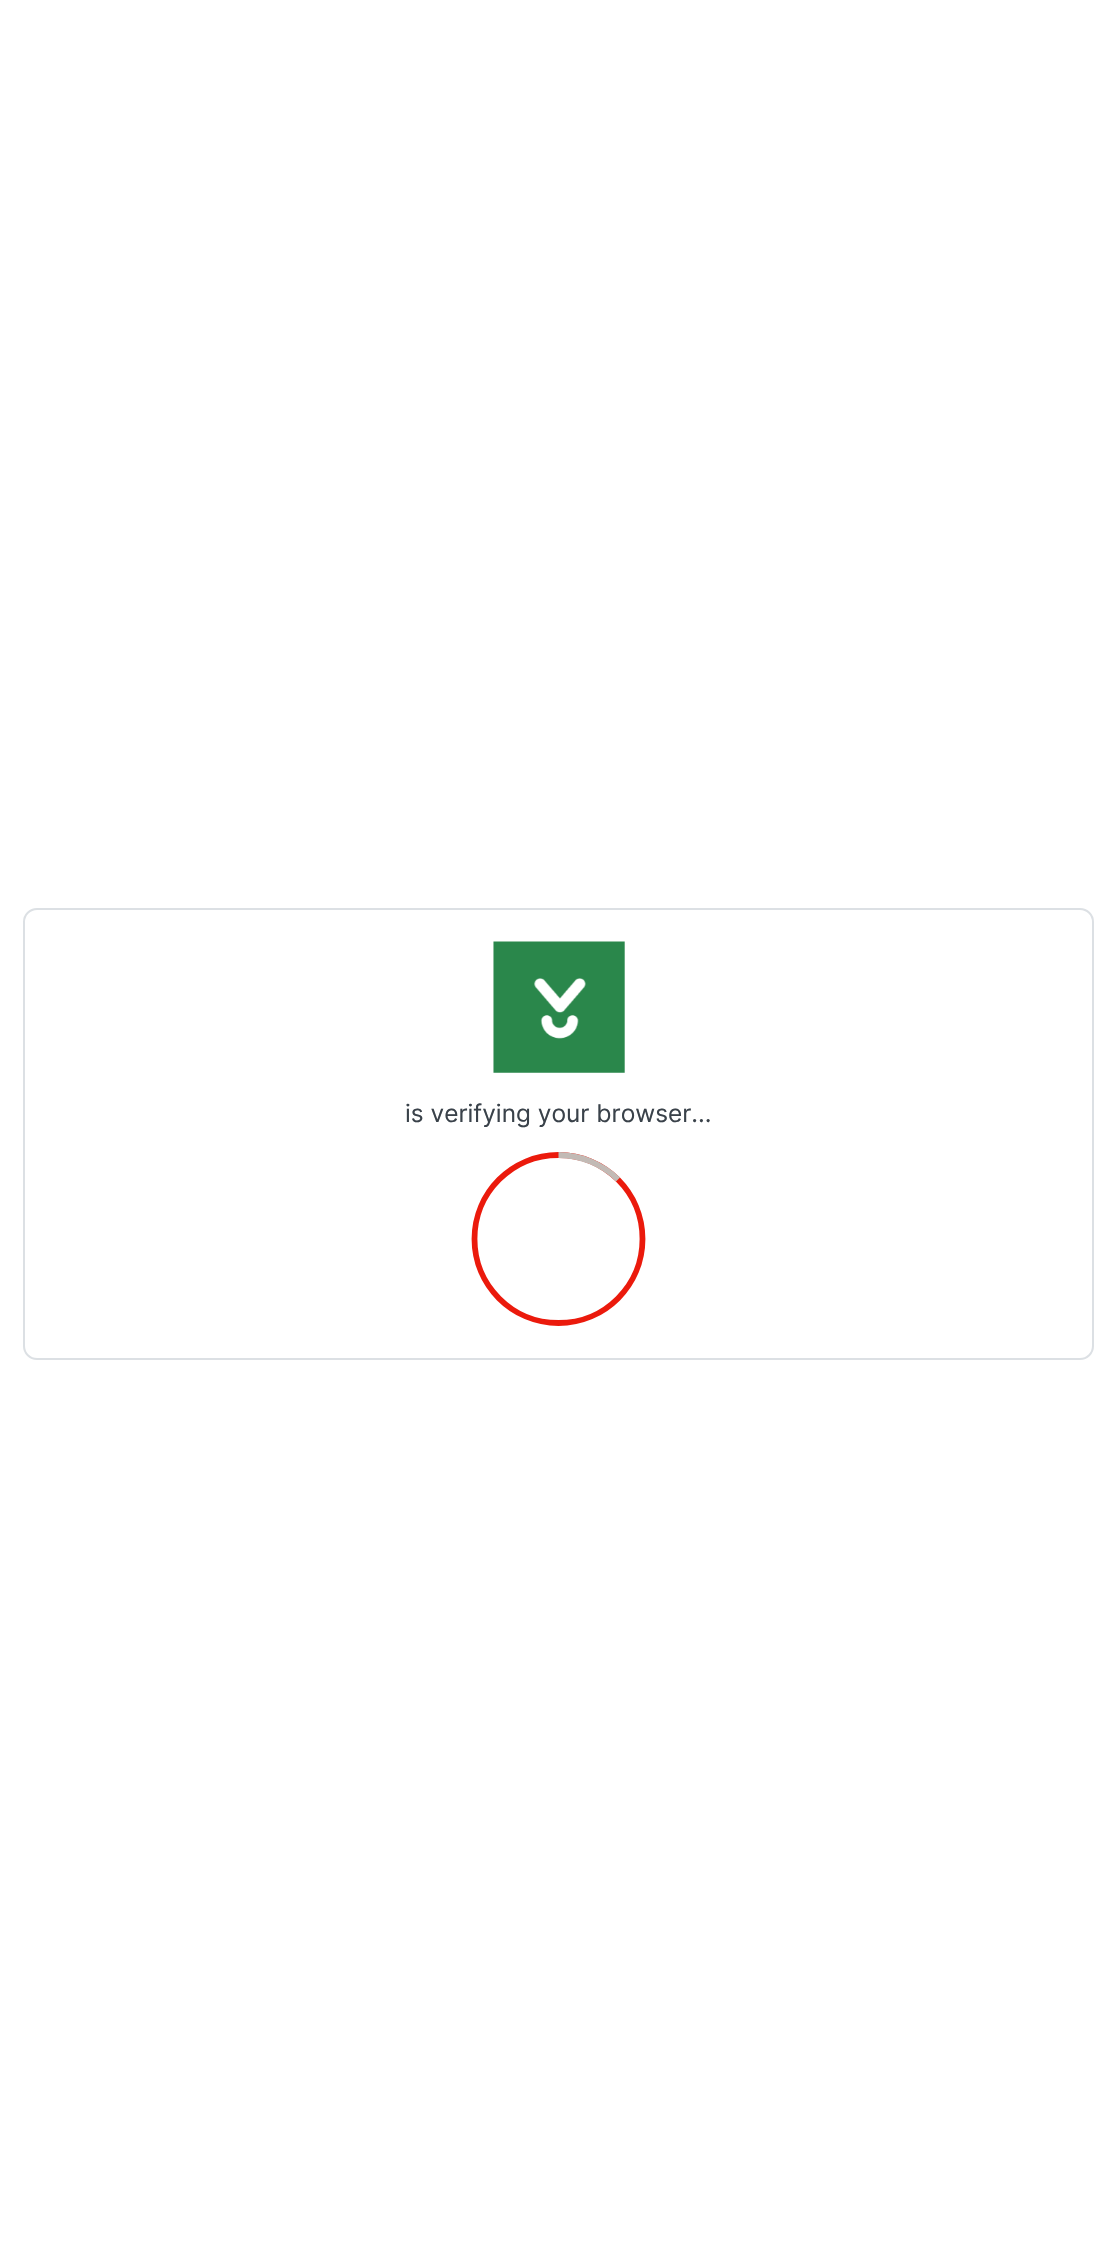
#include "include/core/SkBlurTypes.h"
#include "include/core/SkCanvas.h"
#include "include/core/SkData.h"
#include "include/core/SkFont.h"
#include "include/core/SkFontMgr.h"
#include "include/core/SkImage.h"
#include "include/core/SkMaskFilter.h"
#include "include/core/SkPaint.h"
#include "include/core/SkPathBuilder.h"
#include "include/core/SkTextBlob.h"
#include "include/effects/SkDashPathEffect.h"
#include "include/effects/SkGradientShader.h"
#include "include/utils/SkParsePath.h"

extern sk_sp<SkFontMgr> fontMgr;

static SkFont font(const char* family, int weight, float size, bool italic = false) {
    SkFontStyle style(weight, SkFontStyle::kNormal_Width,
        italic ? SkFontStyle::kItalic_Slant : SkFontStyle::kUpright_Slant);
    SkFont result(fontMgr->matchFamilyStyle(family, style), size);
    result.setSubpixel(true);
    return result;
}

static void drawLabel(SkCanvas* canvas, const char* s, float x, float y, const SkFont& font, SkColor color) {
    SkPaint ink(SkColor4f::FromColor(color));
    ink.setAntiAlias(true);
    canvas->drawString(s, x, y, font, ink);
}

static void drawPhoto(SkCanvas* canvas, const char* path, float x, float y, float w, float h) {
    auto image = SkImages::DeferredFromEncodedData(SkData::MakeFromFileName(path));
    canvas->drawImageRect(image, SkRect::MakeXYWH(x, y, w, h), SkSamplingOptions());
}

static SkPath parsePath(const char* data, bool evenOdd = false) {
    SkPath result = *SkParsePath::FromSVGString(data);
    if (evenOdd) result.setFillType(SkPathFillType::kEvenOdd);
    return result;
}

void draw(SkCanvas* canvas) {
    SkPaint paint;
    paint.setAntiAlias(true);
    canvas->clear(0xFFFFFFFF);
    paint.setStroke(true);
    paint.setStrokeWidth(2);
    paint.setColor(0xFFDCE0E4);
    canvas->drawRoundRect(SkRect::MakeXYWH(24, 909, 1069, 450), 13, 13, paint);
    drawPhoto(canvas, "assets/img1.png", 493, 941, 132, 132);
    SkFont font1 = font("Inter", 400, 24.5f);
    drawLabel(canvas, "is verifying your browser...", 405, 1122, font1, 0xFF3A424A);
    paint.setStrokeWidth(5.8f);
    paint.setColor(0xFFEB1A0C);
    canvas->drawPath(parsePath("M474.5 1239C474.5 1192.5 512 1155 558.5 1155C605 1155 642.5 1192.5 642.5 1239C642.5 1285.5 605 1323 558.5 1323C512 1323 474.5 1285.5 474.5 1239Z"), paint);
    paint.setColor(0xFFC2BAB5);
    canvas->drawPath(parsePath("M618 1179.5C602 1164 580.5 1155 558.5 1155"), paint);
}
